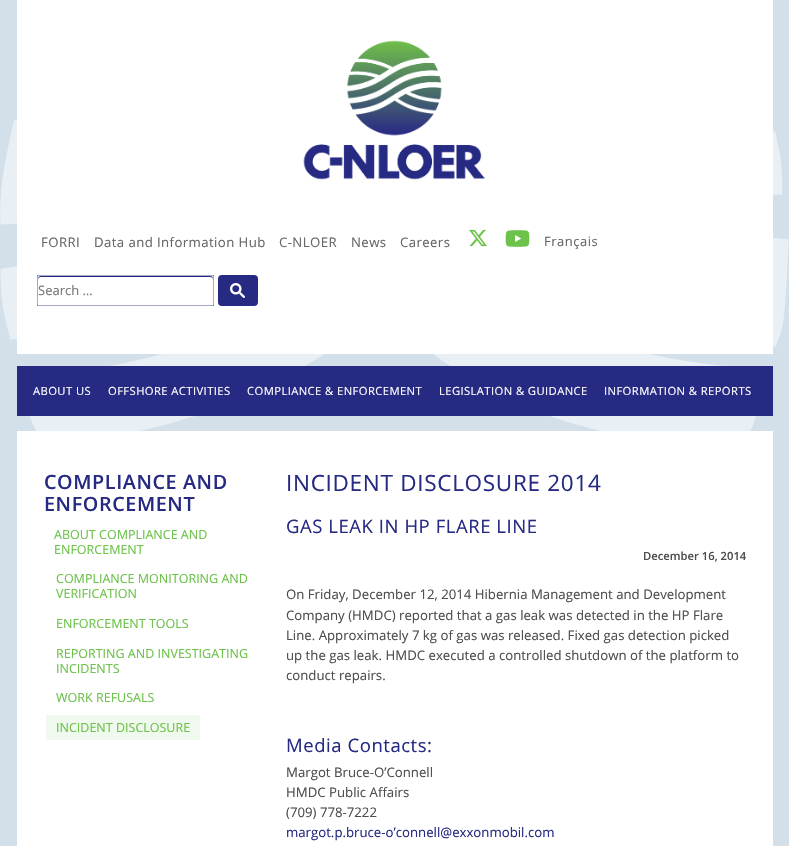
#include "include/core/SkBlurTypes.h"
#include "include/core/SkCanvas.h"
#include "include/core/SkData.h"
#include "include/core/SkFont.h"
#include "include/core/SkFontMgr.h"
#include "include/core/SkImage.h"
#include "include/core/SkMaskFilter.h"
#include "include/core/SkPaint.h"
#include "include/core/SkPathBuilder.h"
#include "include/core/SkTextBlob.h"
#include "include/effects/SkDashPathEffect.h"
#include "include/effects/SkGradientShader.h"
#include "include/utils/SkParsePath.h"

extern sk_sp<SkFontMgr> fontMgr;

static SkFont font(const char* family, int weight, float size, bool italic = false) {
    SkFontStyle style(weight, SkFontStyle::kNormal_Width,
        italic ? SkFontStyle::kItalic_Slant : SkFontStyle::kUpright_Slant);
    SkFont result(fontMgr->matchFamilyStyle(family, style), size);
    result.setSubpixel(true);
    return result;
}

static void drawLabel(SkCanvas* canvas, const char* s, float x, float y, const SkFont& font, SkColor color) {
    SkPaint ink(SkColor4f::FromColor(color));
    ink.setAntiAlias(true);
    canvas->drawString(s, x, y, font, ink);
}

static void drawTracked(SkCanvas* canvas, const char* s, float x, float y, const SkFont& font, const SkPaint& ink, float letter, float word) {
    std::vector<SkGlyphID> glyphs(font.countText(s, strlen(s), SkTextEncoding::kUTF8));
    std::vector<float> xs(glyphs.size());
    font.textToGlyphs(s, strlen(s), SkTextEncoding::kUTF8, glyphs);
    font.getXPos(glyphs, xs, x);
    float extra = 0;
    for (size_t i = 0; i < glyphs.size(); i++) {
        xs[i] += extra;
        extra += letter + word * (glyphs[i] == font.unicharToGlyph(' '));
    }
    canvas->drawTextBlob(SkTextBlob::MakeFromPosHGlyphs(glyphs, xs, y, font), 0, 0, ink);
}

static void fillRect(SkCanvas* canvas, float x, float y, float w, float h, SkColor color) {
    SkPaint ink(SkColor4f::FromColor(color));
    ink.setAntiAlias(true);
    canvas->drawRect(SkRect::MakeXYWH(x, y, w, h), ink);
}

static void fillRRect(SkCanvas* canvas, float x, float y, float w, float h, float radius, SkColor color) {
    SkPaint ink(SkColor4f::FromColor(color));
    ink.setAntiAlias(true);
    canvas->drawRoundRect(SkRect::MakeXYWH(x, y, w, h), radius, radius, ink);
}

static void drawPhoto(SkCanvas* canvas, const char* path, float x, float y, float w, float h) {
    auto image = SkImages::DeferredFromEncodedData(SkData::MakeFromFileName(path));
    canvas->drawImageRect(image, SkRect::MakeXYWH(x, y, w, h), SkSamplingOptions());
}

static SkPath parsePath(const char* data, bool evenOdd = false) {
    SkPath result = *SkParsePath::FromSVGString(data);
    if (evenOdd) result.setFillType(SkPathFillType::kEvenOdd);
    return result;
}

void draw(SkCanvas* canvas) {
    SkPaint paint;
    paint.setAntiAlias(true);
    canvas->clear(0xFFD3E0EA);
    drawPhoto(canvas, "assets/img1.png", 0, 120, 789, 311);
    fillRect(canvas, 17, 0, 756, 354, 0xFFFFFFFF);
    drawPhoto(canvas, "assets/img2.png", 303, 40, 182, 140);
    SkFont font1 = font("Open Sans", 400, 13.2f);
    paint.setColor(0xFF666666);
    drawTracked(canvas, "FORRI", 41, 247, font1, paint, 0.4f, 0);
    drawTracked(canvas, "Data and Information Hub", 94, 247, font1, paint, 0.4f, 0);
    drawTracked(canvas, "C-NLOER", 279, 247, font1, paint, 0.4f, 0);
    drawTracked(canvas, "News", 351, 247, font1, paint, 0.4f, 0);
    drawTracked(canvas, "Careers", 400, 247, font1, paint, 0.4f, 0);
    drawPhoto(canvas, "assets/img3.png", 469, 229, 18, 18);
    drawPhoto(canvas, "assets/img4.png", 505, 230, 25, 17);
    SkFont font2 = font("Open Sans", 400, 13);
    drawTracked(canvas, "Français", 544, 246, font2, paint, 0.5f, 0);
    paint.setColor(0xFF262A82);
    canvas->drawPath(parsePath("M41 277H210C212 277 213 278 213 280V279C213 277 212 276 210 276H41C39 276 38 277 38 279V280C38 278 39 277 41 277Z"), paint);
    fillRect(canvas, 37, 275, 177, 1, 0xFFA8AACD);
    fillRect(canvas, 213, 275, 1, 31, 0x66262A82);
    fillRect(canvas, 37, 305, 177, 1, 0x66262A82);
    fillRect(canvas, 37, 275, 1, 31, 0x66262A82);
    drawLabel(canvas, "Search …", 38, 295, font2, 0xFF757575);
    fillRRect(canvas, 218, 275, 40, 31, 4, 0xFF262A82);
    drawPhoto(canvas, "assets/img5.png", 230, 283, 15, 15);
    fillRect(canvas, 17, 366, 756, 50, 0xFF262A82);
    SkFont font3 = font("Open Sans", 400, 11.25f);
    paint.setColor(0xFFFFFFFF);
    drawTracked(canvas, "ABOUT US", 33, 395, font3, paint, 0.4f, 0);
    drawTracked(canvas, "OFFSHORE ACTIVITIES", 108, 395, font3, paint, 0.4f, 0);
    drawTracked(canvas, "COMPLIANCE & ENFORCEMENT", 247, 395, font3, paint, 0.4f, 0);
    drawTracked(canvas, "LEGISLATION & GUIDANCE", 439, 395, font3, paint, 0.4f, 0);
    drawTracked(canvas, "INFORMATION & REPORTS", 604, 395, font3, paint, 0.4f, 0);
    fillRect(canvas, 17, 431, 756, 415, 0xFFFFFFFF);
    SkFont font4 = font("Open Sans", 600, 19.75f);
    paint.setColor(0xFF262A82);
    drawTracked(canvas, "COMPLIANCE AND", 44, 489, font4, paint, 0.6f, 0);
    drawTracked(canvas, "ENFORCEMENT", 44, 511, font4, paint, 0.6f, 0);
    SkFont font5 = font("Open Sans", 400, 12.5f);
    drawLabel(canvas, "ABOUT COMPLIANCE AND", 54, 539, font5, 0xFF6CC24A);
    drawLabel(canvas, "ENFORCEMENT", 54, 554, font5, 0xFF6CC24A);
    drawLabel(canvas, "COMPLIANCE MONITORING AND", 56, 583, font5, 0xFF6CC24A);
    drawLabel(canvas, "VERIFICATION", 56, 598, font5, 0xFF6CC24A);
    drawLabel(canvas, "ENFORCEMENT TOOLS", 56, 628, font5, 0xFF6CC24A);
    drawLabel(canvas, "REPORTING AND INVESTIGATING", 56, 658, font5, 0xFF6CC24A);
    drawLabel(canvas, "INCIDENTS", 56, 673, font5, 0xFF6CC24A);
    drawLabel(canvas, "WORK REFUSALS", 56, 702, font5, 0xFF6CC24A);
    fillRect(canvas, 46, 715, 154, 25, 0xFFF0F9ED);
    drawLabel(canvas, "INCIDENT DISCLOSURE", 56, 732, font5, 0xFF6CC24A);
    SkFont font6 = font("Open Sans", 400, 22.5f);
    drawTracked(canvas, "INCIDENT DISCLOSURE 2014", 286, 491, font6, paint, 0.7f, 0);
    SkFont font7 = font("Open Sans", 400, 18.5f);
    drawTracked(canvas, "GAS LEAK IN HP FLARE LINE", 286, 533, font7, paint, 0.55f, 0);
    SkFont font8 = font("Open Sans", 600, 11.25f);
    drawLabel(canvas, "December 16, 2014", 643, 560, font8, 0xFF4D4D4D);
    drawLabel(canvas, "On Friday, December 12, 2014 Hibernia Management and Development", 286, 599, font1, 0xFF4D4D4D);
    drawLabel(canvas, "Company (HMDC) reported that a gas leak was detected in the HP Flare", 286, 620, font1, 0xFF4D4D4D);
    drawLabel(canvas, "Line. Approximately 7 kg of gas was released. Fixed gas detection picked", 286, 640, font1, 0xFF4D4D4D);
    drawLabel(canvas, "up the gas leak. HMDC executed a controlled shutdown of the platform to", 286, 660, font1, 0xFF4D4D4D);
    drawLabel(canvas, "conduct repairs.", 286, 680, font1, 0xFF4D4D4D);
    drawTracked(canvas, "Media Contacts:", 286, 752, font7, paint, 0.55f, 0);
    drawLabel(canvas, "Margot Bruce-O’Connell", 286, 777, font1, 0xFF4D4D4D);
    drawLabel(canvas, "HMDC Public Affairs", 286, 797, font1, 0xFF4D4D4D);
    drawLabel(canvas, "(709) 778-7222", 286, 817, font1, 0xFF4D4D4D);
    drawLabel(canvas, "margot.p.bruce-o’connell@exxonmobil.com", 286, 837, font1, 0xFF262A82);
}
